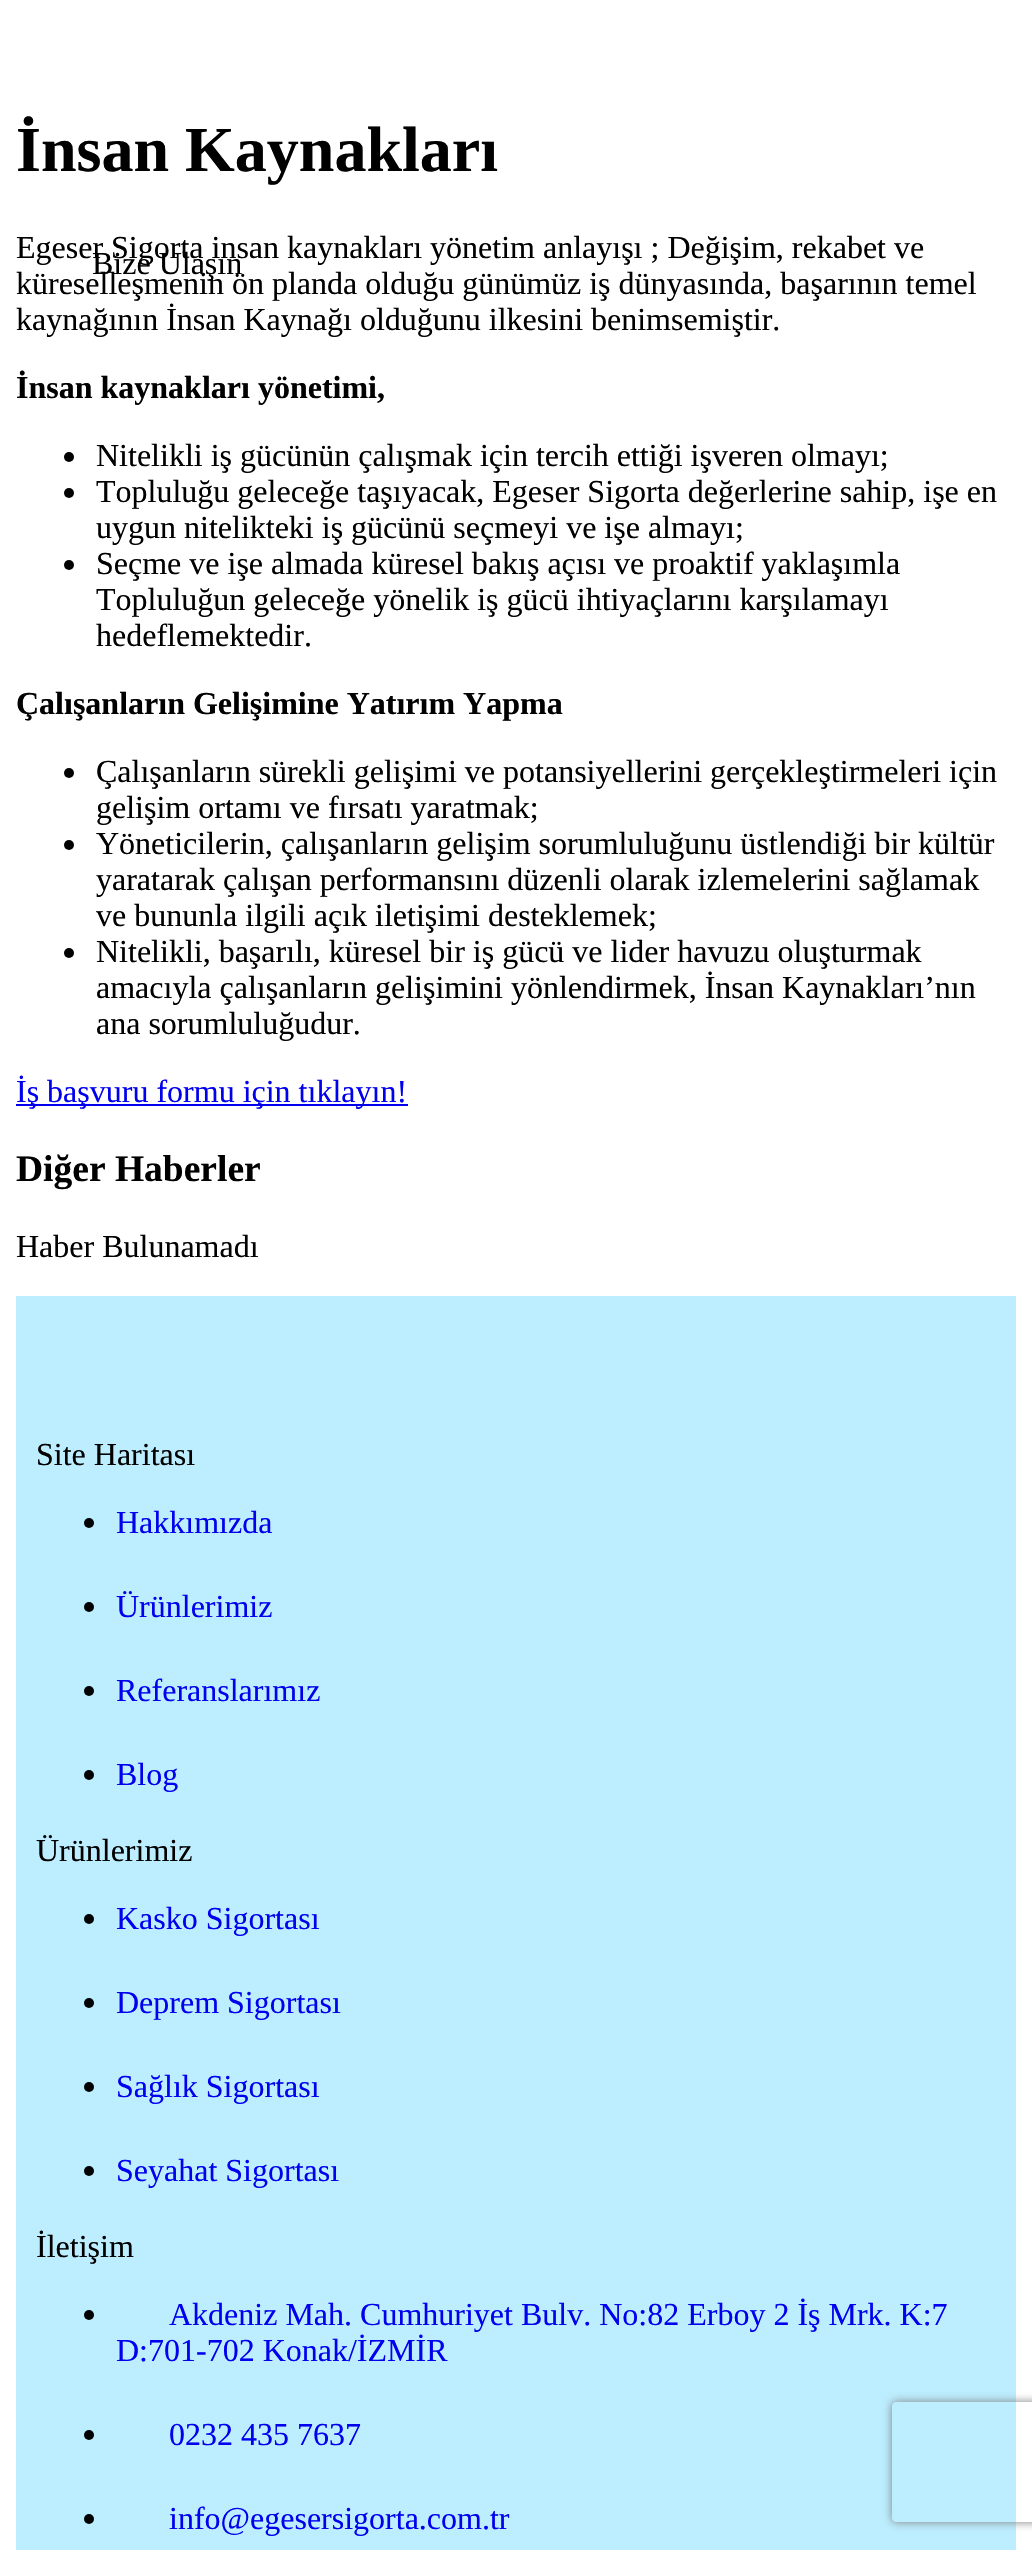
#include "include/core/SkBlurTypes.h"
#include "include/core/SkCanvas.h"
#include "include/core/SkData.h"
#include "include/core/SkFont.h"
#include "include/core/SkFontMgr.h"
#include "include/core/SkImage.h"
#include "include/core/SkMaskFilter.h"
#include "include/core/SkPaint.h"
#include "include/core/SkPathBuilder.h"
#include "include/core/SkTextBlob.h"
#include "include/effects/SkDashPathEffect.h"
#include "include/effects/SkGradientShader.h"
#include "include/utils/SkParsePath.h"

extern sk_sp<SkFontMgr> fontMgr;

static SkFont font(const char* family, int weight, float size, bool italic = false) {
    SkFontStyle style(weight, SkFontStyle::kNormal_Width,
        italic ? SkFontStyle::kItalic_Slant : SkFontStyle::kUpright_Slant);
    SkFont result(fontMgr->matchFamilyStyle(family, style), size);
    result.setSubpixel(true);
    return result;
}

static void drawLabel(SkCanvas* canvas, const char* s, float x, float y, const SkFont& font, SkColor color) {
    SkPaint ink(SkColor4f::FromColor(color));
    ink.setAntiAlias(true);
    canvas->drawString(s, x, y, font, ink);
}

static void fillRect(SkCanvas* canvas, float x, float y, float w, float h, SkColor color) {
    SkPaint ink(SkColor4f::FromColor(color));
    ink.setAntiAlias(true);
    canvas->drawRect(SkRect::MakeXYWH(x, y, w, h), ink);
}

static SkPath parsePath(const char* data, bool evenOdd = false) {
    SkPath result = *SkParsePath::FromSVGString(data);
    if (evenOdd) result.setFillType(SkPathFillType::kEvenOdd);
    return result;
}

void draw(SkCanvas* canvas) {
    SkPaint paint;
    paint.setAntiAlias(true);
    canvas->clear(0xFFFFFFFF);
    SkFont font1 = font("Liberation Serif", 700, 64);
    drawLabel(canvas, "İnsan Kaynakları", 16, 171, font1, 0xFF000000);
    SkFont font2 = font("Liberation Serif", 400, 32);
    drawLabel(canvas, "Bize Ulaşın", 92, 274, font2, 0xFF000000);
    drawLabel(canvas, "Egeser Sigorta insan kaynakları yönetim anlayışı ; Değişim, rekabet ve", 16, 258, font2, 0xFF000000);
    drawLabel(canvas, "küreselleşmenin ön planda olduğu günümüz iş dünyasında, başarının temel", 16, 294, font2, 0xFF000000);
    drawLabel(canvas, "kaynağının İnsan Kaynağı olduğunu ilkesini benimsemiştir.", 16, 330, font2, 0xFF000000);
    SkFont font3 = font("Liberation Serif", 700, 32);
    drawLabel(canvas, "İnsan kaynakları yönetimi,", 16, 398, font3, 0xFF000000);
    paint.setColor(0xFF000000);
    canvas->drawCircle(69, 457, 5, paint);
    drawLabel(canvas, "Nitelikli iş gücünün çalışmak için tercih ettiği işveren olmayı;", 96, 466, font2, 0xFF000000);
    canvas->drawCircle(69, 493, 5, paint);
    drawLabel(canvas, "Topluluğu geleceğe taşıyacak, Egeser Sigorta değerlerine sahip, işe en", 96, 502, font2, 0xFF000000);
    drawLabel(canvas, "uygun nitelikteki iş gücünü seçmeyi ve işe almayı;", 96, 538, font2, 0xFF000000);
    canvas->drawCircle(69, 565, 5, paint);
    drawLabel(canvas, "Seçme ve işe almada küresel bakış açısı ve proaktif yaklaşımla", 96, 574, font2, 0xFF000000);
    drawLabel(canvas, "Topluluğun geleceğe yönelik iş gücü ihtiyaçlarını karşılamayı", 96, 610, font2, 0xFF000000);
    drawLabel(canvas, "hedeflemektedir.", 96, 646, font2, 0xFF000000);
    drawLabel(canvas, "Çalışanların Gelişimine Yatırım Yapma", 16, 714, font3, 0xFF000000);
    canvas->drawCircle(69, 773, 5, paint);
    drawLabel(canvas, "Çalışanların sürekli gelişimi ve potansiyellerini gerçekleştirmeleri için", 96, 782, font2, 0xFF000000);
    drawLabel(canvas, "gelişim ortamı ve fırsatı yaratmak;", 96, 818, font2, 0xFF000000);
    canvas->drawCircle(69, 845, 5, paint);
    drawLabel(canvas, "Yöneticilerin, çalışanların gelişim sorumluluğunu üstlendiği bir kültür", 96, 854, font2, 0xFF000000);
    drawLabel(canvas, "yaratarak çalışan performansını düzenli olarak izlemelerini sağlamak", 96, 890, font2, 0xFF000000);
    drawLabel(canvas, "ve bununla ilgili açık iletişimi desteklemek;", 96, 926, font2, 0xFF000000);
    canvas->drawCircle(69, 953, 5, paint);
    drawLabel(canvas, "Nitelikli, başarılı, küresel bir iş gücü ve lider havuzu oluşturmak", 96, 962, font2, 0xFF000000);
    drawLabel(canvas, "amacıyla çalışanların gelişimini yönlendirmek, İnsan Kaynakları’nın", 96, 998, font2, 0xFF000000);
    drawLabel(canvas, "ana sorumluluğudur.", 96, 1034, font2, 0xFF000000);
    fillRect(canvas, 16, 1104, 392, 2, 0xFF0000EE);
    drawLabel(canvas, "İş başvuru formu için tıklayın!", 16, 1102, font2, 0xFF0000EE);
    SkFont font4 = font("Liberation Serif", 700, 37.5f);
    drawLabel(canvas, "Diğer Haberler", 16, 1181, font4, 0xFF000000);
    drawLabel(canvas, "Haber Bulunamadı", 16, 1257, font2, 0xFF000000);
    fillRect(canvas, 16, 1296, 1000, 1254, 0xFFBCEEFF);
    drawLabel(canvas, "Site Haritası", 36, 1465, font2, 0xFF000000);
    canvas->drawCircle(89, 1523, 5, paint);
    drawLabel(canvas, "Hakkımızda", 116, 1533, font2, 0xFF0000EE);
    canvas->drawCircle(89, 1607, 5, paint);
    drawLabel(canvas, "Ürünlerimiz", 116, 1617, font2, 0xFF0000EE);
    canvas->drawCircle(89, 1691, 5, paint);
    drawLabel(canvas, "Referanslarımız", 116, 1701, font2, 0xFF0000EE);
    canvas->drawCircle(89, 1775, 5, paint);
    drawLabel(canvas, "Blog", 116, 1785, font2, 0xFF0000EE);
    drawLabel(canvas, "Ürünlerimiz", 36, 1861, font2, 0xFF000000);
    canvas->drawCircle(89, 1919, 5, paint);
    drawLabel(canvas, "Kasko Sigortası", 116, 1929, font2, 0xFF0000EE);
    canvas->drawCircle(89, 2003, 5, paint);
    drawLabel(canvas, "Deprem Sigortası", 116, 2013, font2, 0xFF0000EE);
    canvas->drawCircle(89, 2087, 5, paint);
    drawLabel(canvas, "Sağlık Sigortası", 116, 2097, font2, 0xFF0000EE);
    canvas->drawCircle(89, 2171, 5, paint);
    drawLabel(canvas, "Seyahat Sigortası", 116, 2181, font2, 0xFF0000EE);
    drawLabel(canvas, "İletişim", 36, 2257, font2, 0xFF000000);
    canvas->drawCircle(89, 2315, 5, paint);
    drawLabel(canvas, "Akdeniz Mah. Cumhuriyet Bulv. No:82 Erboy 2 İş Mrk. K:7", 169, 2325, font2, 0xFF0000EE);
    drawLabel(canvas, "D:701-702 Konak/İZMİR", 116, 2361, font2, 0xFF0000EE);
    canvas->drawCircle(89, 2435, 5, paint);
    drawLabel(canvas, "0232 435 7637", 169, 2445, font2, 0xFF0000EE);
    canvas->drawCircle(89, 2519, 5, paint);
    drawLabel(canvas, "info@egesersigorta.com.tr", 169, 2529, font2, 0xFF0000EE);
    canvas->save();
    canvas->clipPath(parsePath("M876 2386H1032V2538H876ZM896 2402H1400C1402 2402 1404 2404 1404 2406V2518C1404 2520 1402 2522 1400 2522H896C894 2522 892 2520 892 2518V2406C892 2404 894 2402 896 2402Z", true), true);
    paint.setColor(0xFF808080);
    paint.setMaskFilter(SkMaskFilter::MakeBlur(kNormal_SkBlurStyle, 5));
    canvas->drawRoundRect(SkRect::MakeXYWH(892, 2402, 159, 120), 4, 4, paint);
    paint.setMaskFilter(nullptr);
    canvas->restore();
}
